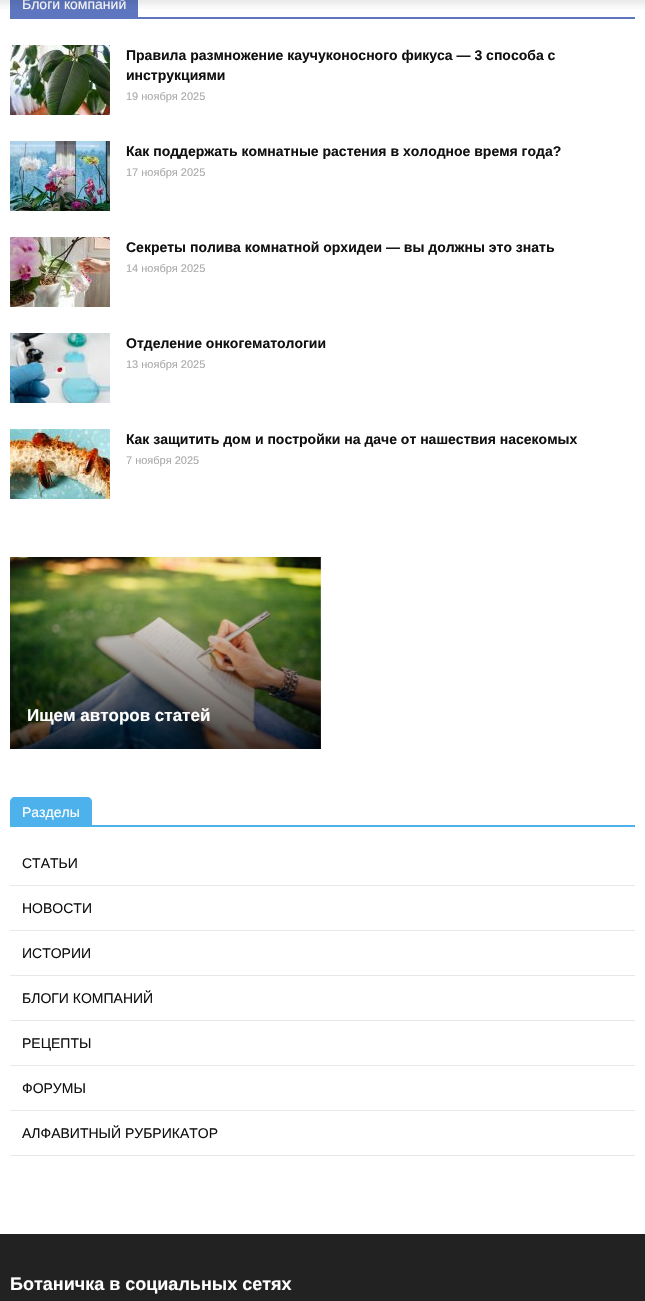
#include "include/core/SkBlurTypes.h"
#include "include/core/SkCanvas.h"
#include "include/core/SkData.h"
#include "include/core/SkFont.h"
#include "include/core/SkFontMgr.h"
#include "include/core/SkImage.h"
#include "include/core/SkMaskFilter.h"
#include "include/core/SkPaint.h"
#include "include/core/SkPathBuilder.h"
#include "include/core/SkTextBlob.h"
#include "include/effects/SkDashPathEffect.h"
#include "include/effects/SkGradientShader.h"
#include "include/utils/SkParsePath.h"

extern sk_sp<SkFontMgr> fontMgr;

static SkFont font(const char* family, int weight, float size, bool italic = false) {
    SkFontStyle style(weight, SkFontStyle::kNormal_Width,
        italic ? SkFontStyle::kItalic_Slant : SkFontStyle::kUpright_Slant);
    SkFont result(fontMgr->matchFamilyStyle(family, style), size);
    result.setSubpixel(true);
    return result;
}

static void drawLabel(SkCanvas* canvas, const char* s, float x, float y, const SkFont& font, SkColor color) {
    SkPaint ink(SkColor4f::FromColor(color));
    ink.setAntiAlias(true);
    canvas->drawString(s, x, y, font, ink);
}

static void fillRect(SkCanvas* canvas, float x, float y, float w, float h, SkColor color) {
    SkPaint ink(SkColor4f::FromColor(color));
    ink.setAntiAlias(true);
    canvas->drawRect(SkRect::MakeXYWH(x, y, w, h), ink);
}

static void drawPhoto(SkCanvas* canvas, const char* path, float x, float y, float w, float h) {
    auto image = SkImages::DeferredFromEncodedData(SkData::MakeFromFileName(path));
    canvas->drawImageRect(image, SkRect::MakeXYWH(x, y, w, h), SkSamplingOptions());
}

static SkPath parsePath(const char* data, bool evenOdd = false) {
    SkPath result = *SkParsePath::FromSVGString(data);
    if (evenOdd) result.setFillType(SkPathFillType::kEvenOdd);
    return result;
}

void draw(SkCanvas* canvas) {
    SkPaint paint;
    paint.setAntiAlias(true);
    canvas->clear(0xFFFFFFFF);
    fillRect(canvas, 10, 0, 128, 17, 0xFF5D76BF);
    SkFont font1 = font("Liberation Sans", 400, 14);
    drawLabel(canvas, "Блоги компаний", 22, 9, font1, 0xFFFFFFFF);
    drawPhoto(canvas, "assets/img1.png", 0, 0, 645, 9);
    fillRect(canvas, 10, 17, 625, 2, 0xFF5D76BF);
    drawPhoto(canvas, "assets/img2.png", 10, 45, 100, 70);
    SkFont font2 = font("Liberation Sans", 700, 14);
    drawLabel(canvas, "Правила размножение каучуконосного фикуса — 3 способа с", 126, 60, font2, 0xFF111111);
    drawLabel(canvas, "инструкциями", 126, 80, font2, 0xFF111111);
    SkFont font3 = font("Liberation Sans", 400, 11);
    drawLabel(canvas, "19 ноября 2025", 126, 100, font3, 0xFFAAAAAA);
    drawPhoto(canvas, "assets/img3.png", 10, 141, 100, 70);
    drawLabel(canvas, "Как поддержать комнатные растения в холодное время года?", 126, 156, font2, 0xFF111111);
    drawLabel(canvas, "17 ноября 2025", 126, 176, font3, 0xFFAAAAAA);
    drawPhoto(canvas, "assets/img4.png", 10, 237, 100, 70);
    drawLabel(canvas, "Секреты полива комнатной орхидеи — вы должны это знать", 126, 252, font2, 0xFF111111);
    drawLabel(canvas, "14 ноября 2025", 126, 272, font3, 0xFFAAAAAA);
    drawPhoto(canvas, "assets/img5.png", 10, 333, 100, 70);
    drawLabel(canvas, "Отделение онкогематологии", 126, 348, font2, 0xFF111111);
    drawLabel(canvas, "13 ноября 2025", 126, 368, font3, 0xFFAAAAAA);
    drawPhoto(canvas, "assets/img6.png", 10, 429, 100, 70);
    drawLabel(canvas, "Как защитить дом и постройки на даче от нашествия насекомых", 126, 444, font2, 0xFF111111);
    drawLabel(canvas, "7 ноября 2025", 126, 464, font3, 0xFFAAAAAA);
    drawPhoto(canvas, "assets/img7.png", 10, 557, 311, 192);
    {
        const SkColor colors[] = {0x00000000, 0xB3000000};
        const float stops[] = {0, 1};
        const SkPoint ends[] = {{166, 595}, {166, 749}};
        paint.setShader(SkGradientShader::MakeLinear(ends, colors, stops, 2, SkTileMode::kClamp));
        paint.setAlpha(255);
    }
    canvas->drawRect(SkRect::MakeXYWH(10, 600, 311, 149), paint);
    SkFont font4 = font("Liberation Sans", 700, 17);
    drawLabel(canvas, "Ищем авторов статей", 27, 721, font4, 0xFFFFFFFF);
    fillRect(canvas, 10, 825, 625, 2, 0xFF4DB2EC);
    paint.setShader(nullptr);
    paint.setColor(0xFF4DB2EC);
    canvas->drawPath(parsePath("M15 797H87C90 797 92 799 92 802V825H10V802C10 799 12 797 15 797Z"), paint);
    drawLabel(canvas, "Разделы", 22, 817, font1, 0xFFFFFFFF);
    fillRect(canvas, 10, 885, 625, 1, 0xFFE8E8E8);
    drawLabel(canvas, "СТАТЬИ", 22, 868, font1, 0xFF111111);
    fillRect(canvas, 10, 930, 625, 1, 0xFFE8E8E8);
    drawLabel(canvas, "НОВОСТИ", 22, 913, font1, 0xFF111111);
    fillRect(canvas, 10, 975, 625, 1, 0xFFE8E8E8);
    drawLabel(canvas, "ИСТОРИИ", 22, 958, font1, 0xFF111111);
    fillRect(canvas, 10, 1020, 625, 1, 0xFFE8E8E8);
    drawLabel(canvas, "БЛОГИ КОМПАНИЙ", 22, 1003, font1, 0xFF111111);
    fillRect(canvas, 10, 1065, 625, 1, 0xFFE8E8E8);
    drawLabel(canvas, "РЕЦЕПТЫ", 22, 1048, font1, 0xFF111111);
    fillRect(canvas, 10, 1110, 625, 1, 0xFFE8E8E8);
    drawLabel(canvas, "ФОРУМЫ", 22, 1093, font1, 0xFF111111);
    fillRect(canvas, 10, 1155, 625, 1, 0xFFE8E8E8);
    drawLabel(canvas, "АЛФАВИТНЫЙ РУБРИКАТОР", 22, 1138, font1, 0xFF111111);
    fillRect(canvas, 0, 1234, 645, 67, 0xFF222222);
    SkFont font5 = font("Liberation Sans", 700, 18);
    drawLabel(canvas, "Ботаничка в социальных сетях", 10, 1290, font5, 0xFFFFFFFF);
}
